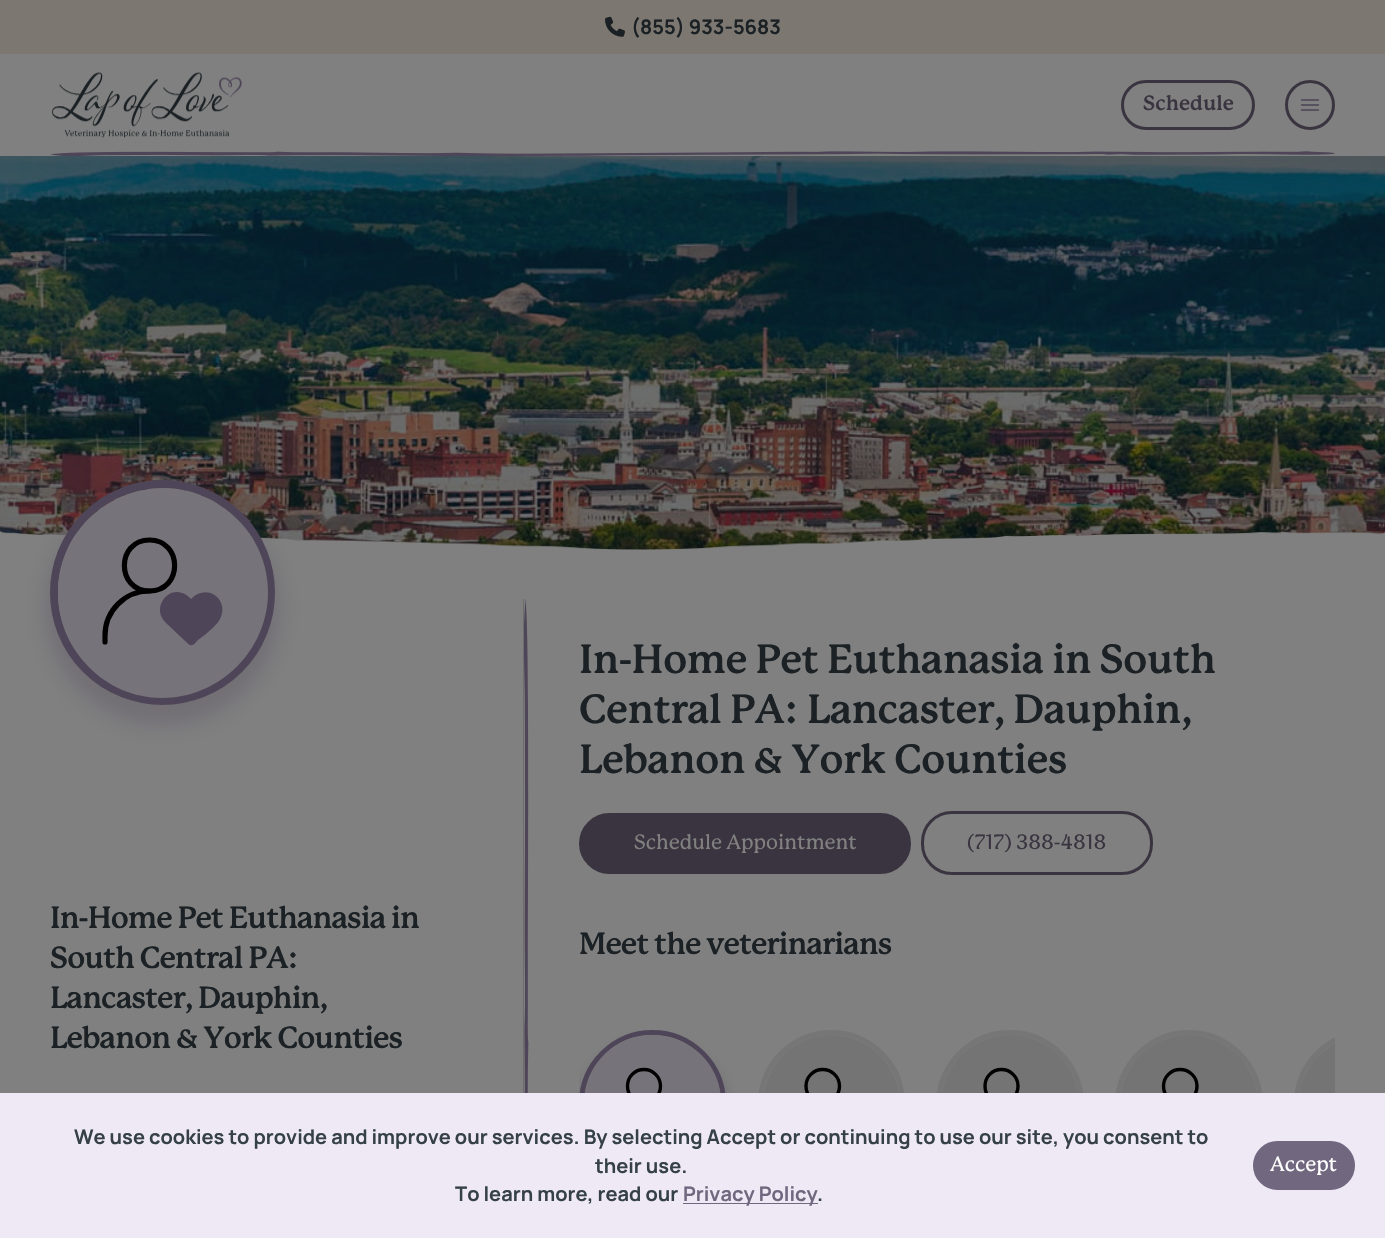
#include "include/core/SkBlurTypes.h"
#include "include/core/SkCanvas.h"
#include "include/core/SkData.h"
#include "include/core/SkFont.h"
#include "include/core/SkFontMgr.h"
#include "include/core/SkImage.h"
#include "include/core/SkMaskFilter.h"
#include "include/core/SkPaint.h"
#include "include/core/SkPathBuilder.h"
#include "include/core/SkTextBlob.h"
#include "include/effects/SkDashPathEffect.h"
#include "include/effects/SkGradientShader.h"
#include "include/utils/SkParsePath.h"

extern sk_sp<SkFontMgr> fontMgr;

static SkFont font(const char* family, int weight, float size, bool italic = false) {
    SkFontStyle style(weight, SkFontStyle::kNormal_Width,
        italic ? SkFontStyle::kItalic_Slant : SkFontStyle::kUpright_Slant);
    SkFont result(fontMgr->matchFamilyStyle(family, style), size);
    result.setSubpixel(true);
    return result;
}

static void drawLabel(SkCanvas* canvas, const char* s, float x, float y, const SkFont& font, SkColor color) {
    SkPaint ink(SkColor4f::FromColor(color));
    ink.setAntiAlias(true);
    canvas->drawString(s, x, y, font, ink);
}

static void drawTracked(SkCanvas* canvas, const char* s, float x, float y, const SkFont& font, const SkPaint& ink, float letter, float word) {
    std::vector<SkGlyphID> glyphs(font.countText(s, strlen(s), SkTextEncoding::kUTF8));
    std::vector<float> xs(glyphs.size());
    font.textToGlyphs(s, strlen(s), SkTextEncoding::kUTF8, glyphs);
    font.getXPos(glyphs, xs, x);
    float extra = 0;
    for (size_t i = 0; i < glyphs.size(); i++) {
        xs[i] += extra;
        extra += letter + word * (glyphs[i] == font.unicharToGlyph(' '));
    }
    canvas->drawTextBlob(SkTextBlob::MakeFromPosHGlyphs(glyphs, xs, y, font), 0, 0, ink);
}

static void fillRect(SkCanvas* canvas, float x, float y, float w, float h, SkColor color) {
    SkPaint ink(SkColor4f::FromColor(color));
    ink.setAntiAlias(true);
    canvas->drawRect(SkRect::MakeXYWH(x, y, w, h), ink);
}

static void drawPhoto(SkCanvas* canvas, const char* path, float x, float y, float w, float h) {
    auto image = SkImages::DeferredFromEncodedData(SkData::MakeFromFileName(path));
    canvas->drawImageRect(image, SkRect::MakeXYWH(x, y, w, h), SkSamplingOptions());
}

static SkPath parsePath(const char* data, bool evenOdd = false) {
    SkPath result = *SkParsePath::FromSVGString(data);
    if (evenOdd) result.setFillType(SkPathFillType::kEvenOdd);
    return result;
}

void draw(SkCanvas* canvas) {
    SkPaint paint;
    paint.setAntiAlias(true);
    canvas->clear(0xFF808080);
    fillRect(canvas, 0, 0, 1385, 54, 0xFF7C7871);
    drawPhoto(canvas, "assets/img1.png", 605, 16, 20, 21);
    SkFont font1 = font("Manrope", 700, 20);
    drawLabel(canvas, "(855) 933-5683", 631, 34, font1, 0xFF1B2124);
    drawPhoto(canvas, "assets/img2.png", 52, 72, 190, 66);
    paint.setStroke(true);
    paint.setStrokeWidth(3);
    paint.setColor(0xFF39343F);
    canvas->drawRoundRect(SkRect::MakeXYWH(1122.5f, 81.5f, 131, 47), 23.5f, 23.5f, paint);
    SkFont font2 = font("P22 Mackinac", 700, 20.25f);
    drawLabel(canvas, "Schedule", 1143, 110, font2, 0xFF39343F);
    canvas->drawCircle(1310, 105, 23.5f, paint);
    drawPhoto(canvas, "assets/img3.png", 1300, 99, 20, 12);
    drawPhoto(canvas, "assets/img4.png", 50, 151, 1285, 5);
    drawPhoto(canvas, "assets/img5.png", 0, 156, 1385, 394);
    drawPhoto(canvas, "assets/img6.png", 0, 531, 1385, 19);
    fillRect(canvas, 523, 599, 1, 494, 0xFF6D6D6D);
    drawPhoto(canvas, "assets/img7.png", 524, 599, 5, 494);
    SkFont font3 = font("P22 Mackinac", 700, 40);
    paint.setStroke(false);
    paint.setColor(0xFF1B2124);
    drawTracked(canvas, "In-Home Pet Euthanasia in South", 579, 673, font3, paint, -0.4f, 0);
    drawTracked(canvas, "Central PA: Lancaster, Dauphin,", 579, 723, font3, paint, -0.4f, 0);
    drawTracked(canvas, "Lebanon & York Counties", 579, 773, font3, paint, -0.4f, 0);
    paint.setColor(0xFF39343F);
    canvas->drawRoundRect(SkRect::MakeXYWH(580.5f, 814.5f, 329, 58), 29, 29, paint);
    paint.setStroke(true);
    canvas->drawRoundRect(SkRect::MakeXYWH(580.5f, 814.5f, 329, 58), 29, 29, paint);
    SkFont font4 = font("P22 Mackinac", 500, 20.25f);
    drawLabel(canvas, "Schedule Appointment", 634, 849, font4, 0xFF808080);
    canvas->drawRoundRect(SkRect::MakeXYWH(922.5f, 812.5f, 229, 61), 29.5f, 29.5f, paint);
    drawLabel(canvas, "(717) 388-4818", 967, 849, font4, 0xFF39343F);
    SkFont font5 = font("P22 Mackinac", 700, 30);
    paint.setStroke(false);
    paint.setColor(0xFF1B2124);
    drawTracked(canvas, "Meet the veterinarians", 579, 954, font5, paint, -0.9f, 0);
    canvas->save();
    canvas->clipRect(SkRect::MakeXYWH(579, 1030, 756, 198));
    paint.setColor(0x664E4658);
    paint.setMaskFilter(SkMaskFilter::MakeBlur(kNormal_SkBlurStyle, 7));
    canvas->drawRoundRect(SkRect::MakeXYWH(578, 1041, 150, 150), 75, 75, paint);
    paint.setMaskFilter(nullptr);
    canvas->restore();
    paint.setStroke(true);
    paint.setStrokeWidth(5);
    paint.setColor(0xFF4E4658);
    canvas->drawRoundRect(SkRect::MakeXYWH(581.5f, 1032.5f, 142, 143), 71, 71, paint);
    paint.setStroke(false);
    paint.setColor(0xFF77737A);
    canvas->drawPath(parsePath("M652 1035C667 1035 681 1040 693 1048C746 1087 719 1173 652 1173C638 1173 624 1168 612 1160C559 1121 586 1035 652 1035Z"), paint);
    paint.setStroke(true);
    paint.setStrokeWidth(3.4f);
    paint.setStrokeCap(SkPaint::kRound_Cap);
    paint.setStrokeJoin(SkPaint::kRound_Join);
    paint.setColor(0xFF000000);
    canvas->drawPath(parsePath("M644 1103C653 1103 660.5 1095.5 660.5 1086C660.5 1077 653 1069.5 644 1069.5C634.5 1069.5 627.5 1077 627.5 1086C627.5 1095.5 634.5 1103 644 1103Z"), paint);
    paint.setStrokeWidth(5);
    paint.setStrokeCap(SkPaint::kButt_Cap);
    paint.setStrokeJoin(SkPaint::kMiter_Join);
    paint.setColor(0xFF767676);
    canvas->drawRoundRect(SkRect::MakeXYWH(760.5f, 1032.5f, 142, 143), 71, 71, paint);
    paint.setStroke(false);
    paint.setColor(0xFF747474);
    canvas->drawPath(parsePath("M900 1104C900 1066 869 1035 831 1035C794 1035 763 1066 763 1104C763 1142 794 1173 831 1173C869 1173 900 1142 900 1104Z"), paint);
    paint.setStroke(true);
    paint.setStrokeWidth(3.4f);
    paint.setStrokeCap(SkPaint::kRound_Cap);
    paint.setStrokeJoin(SkPaint::kRound_Join);
    paint.setColor(0xFF000000);
    canvas->drawPath(parsePath("M822.5 1103C832 1103 839.5 1095.5 839.5 1086C839.5 1077 832 1069.5 822.5 1069.5C813.5 1069.5 806 1077 806 1086C806 1095.5 813.5 1103 822.5 1103Z"), paint);
    paint.setStrokeWidth(5);
    paint.setStrokeCap(SkPaint::kButt_Cap);
    paint.setStrokeJoin(SkPaint::kMiter_Join);
    paint.setColor(0xFF767676);
    canvas->drawCircle(1010, 1104, 71.5f, paint);
    paint.setStroke(false);
    paint.setColor(0xFF747474);
    canvas->drawCircle(1010, 1104, 69, paint);
    paint.setStroke(true);
    paint.setStrokeWidth(3.4f);
    paint.setStrokeCap(SkPaint::kRound_Cap);
    paint.setStrokeJoin(SkPaint::kRound_Join);
    paint.setColor(0xFF000000);
    canvas->drawPath(parsePath("M1001.5 1103C1010.5 1103 1018 1095.5 1018 1086C1018 1077 1010.5 1069.5 1001.5 1069.5C992 1069.5 985 1077 985 1086C985 1095.5 992 1103 1001.5 1103Z"), paint);
    paint.setStrokeWidth(5);
    paint.setStrokeCap(SkPaint::kButt_Cap);
    paint.setStrokeJoin(SkPaint::kMiter_Join);
    paint.setColor(0xFF767676);
    canvas->drawCircle(1189, 1104, 71.5f, paint);
    paint.setStroke(false);
    paint.setColor(0xFF747474);
    canvas->drawCircle(1189, 1104, 69, paint);
    paint.setStroke(true);
    paint.setStrokeWidth(3.4f);
    paint.setStrokeCap(SkPaint::kRound_Cap);
    paint.setStrokeJoin(SkPaint::kRound_Join);
    paint.setColor(0xFF000000);
    canvas->drawPath(parsePath("M1180 1103C1189.5 1103 1197 1095.5 1197 1086C1197 1077 1189.5 1069.5 1180 1069.5C1171 1069.5 1163.5 1077 1163.5 1086C1163.5 1095.5 1171 1103 1180 1103Z"), paint);
    canvas->save();
    canvas->clipRect(SkRect::MakeXYWH(579, 1030, 756, 198));
    paint.setStrokeWidth(5);
    paint.setStrokeCap(SkPaint::kButt_Cap);
    paint.setStrokeJoin(SkPaint::kMiter_Join);
    paint.setColor(0xFF767676);
    canvas->drawRoundRect(SkRect::MakeXYWH(1296.5f, 1032.5f, 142, 143), 71, 71, paint);
    canvas->restore();
    canvas->save();
    canvas->clipRect(SkRect::MakeXYWH(1299, 1035, 36, 138));
    paint.setStroke(false);
    paint.setColor(0xFF747474);
    canvas->drawPath(parsePath("M1368 1035C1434 1035 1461 1122 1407 1160C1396 1169 1382 1173 1368 1173C1301 1173 1274 1086 1328 1048C1339 1039 1353 1035 1368 1035Z"), paint);
    canvas->restore();
    paint.setColor(0x4D4E4658);
    paint.setMaskFilter(SkMaskFilter::MakeBlur(kNormal_SkBlurStyle, 10.5f));
    canvas->drawRoundRect(SkRect::MakeXYWH(45, 491, 235, 235), 117.5f, 117.5f, paint);
    paint.setMaskFilter(nullptr);
    paint.setStroke(true);
    paint.setStrokeWidth(8);
    paint.setColor(0xFF4E4658);
    canvas->drawCircle(162.5f, 592.5f, 108.5f, paint);
    paint.setStroke(false);
    paint.setColor(0xFF77737A);
    canvas->drawPath(parsePath("M163 488C192 488 218 500 237 519C256 537 268 564 268 592C268 650 220 698 162 698C134 698 107 686 89 667C70 648 58 622 58 593C58 535 105 488 163 488Z"), paint);
    paint.setStroke(true);
    paint.setStrokeWidth(5.2f);
    paint.setStrokeCap(SkPaint::kRound_Cap);
    paint.setStrokeJoin(SkPaint::kRound_Join);
    paint.setColor(0xFF000000);
    canvas->drawPath(parsePath("M105 642V635.5C105 611 124.5 591 149.5 591"), paint);
    canvas->drawPath(parsePath("M149.5 591C183 591 183 540 149.5 540C116 540 116 591 149.5 591Z"), paint);
    paint.setStroke(false);
    paint.setColor(0xFF4E4658);
    canvas->drawPath(parsePath("M166 623L184 640C191 647 192 647 198 640L206 634C211 629 217 625 220 619C230 601 208 582 191 599C172 579 149 607 166 623Z"), paint);
    paint.setColor(0xFF1B2124);
    drawTracked(canvas, "In-Home Pet Euthanasia in", 50, 928, font5, paint, -0.9f, 0);
    drawTracked(canvas, "South Central PA:", 50, 968, font5, paint, -0.9f, 0);
    drawTracked(canvas, "Lancaster, Dauphin,", 50, 1008, font5, paint, -0.9f, 0);
    drawTracked(canvas, "Lebanon & York Counties", 50, 1048, font5, paint, -0.9f, 0);
    fillRect(canvas, 0, 1093, 1385, 145, 0xFFEFE9F6);
    drawLabel(canvas, "We use cookies to provide and improve our services. By selecting Accept or continuing to use our site, you consent to", 74, 1144, font1, 0xFF354147);
    drawLabel(canvas, "their use.", 595, 1173, font1, 0xFF354147);
    drawLabel(canvas, "To learn more, read our", 455, 1201, font1, 0xFF354147);
    fillRect(canvas, 683, 1203, 135, 1, 0xFF71677E);
    drawLabel(canvas, "Privacy Policy", 683, 1201, font1, 0xFF71677E);
    drawLabel(canvas, ".", 817, 1201, font1, 0xFF354147);
    paint.setColor(0xFF71677E);
    canvas->drawRoundRect(SkRect::MakeXYWH(1254.5f, 1142.5f, 99, 46), 23, 23, paint);
    paint.setStroke(true);
    paint.setStrokeWidth(3);
    paint.setStrokeCap(SkPaint::kButt_Cap);
    paint.setStrokeJoin(SkPaint::kMiter_Join);
    canvas->drawRoundRect(SkRect::MakeXYWH(1254.5f, 1142.5f, 99, 46), 23, 23, paint);
    drawLabel(canvas, "Accept", 1270, 1171, font4, 0xFFFFFFFF);
}
